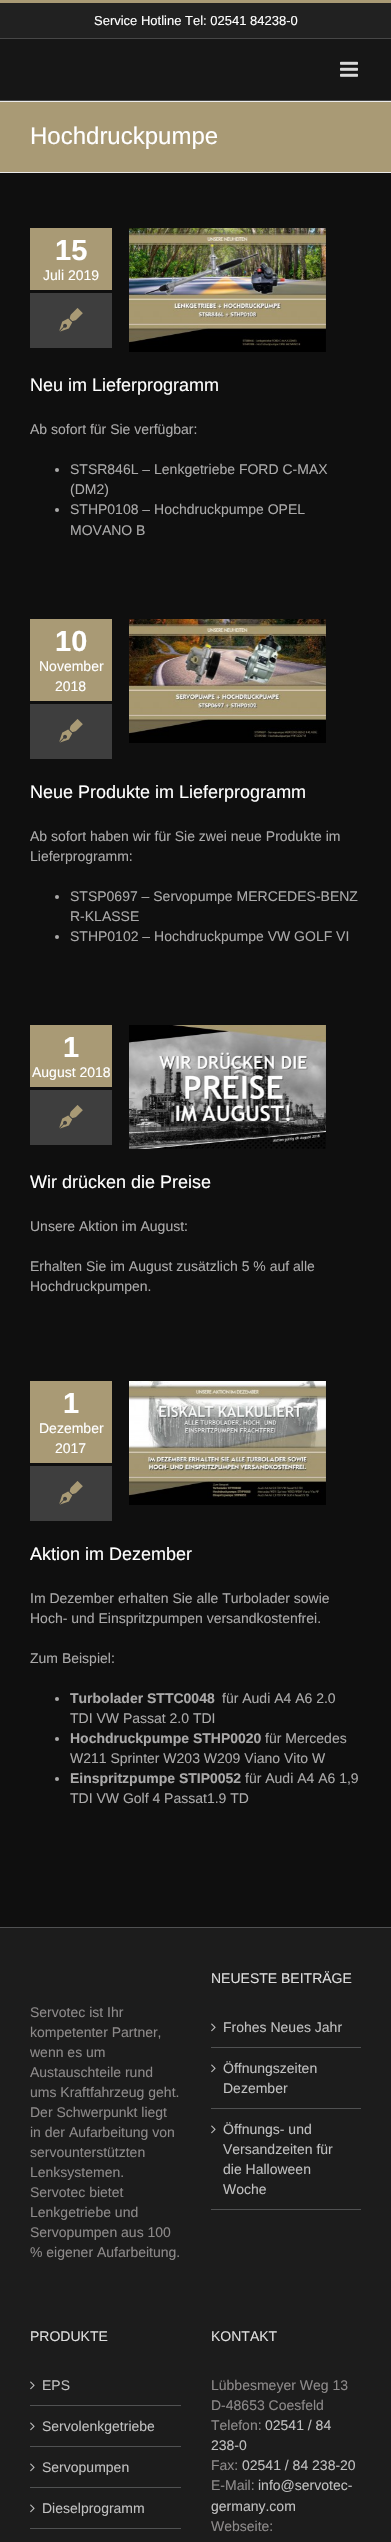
#include "include/core/SkBlurTypes.h"
#include "include/core/SkCanvas.h"
#include "include/core/SkData.h"
#include "include/core/SkFont.h"
#include "include/core/SkFontMgr.h"
#include "include/core/SkImage.h"
#include "include/core/SkMaskFilter.h"
#include "include/core/SkPaint.h"
#include "include/core/SkPathBuilder.h"
#include "include/core/SkTextBlob.h"
#include "include/effects/SkDashPathEffect.h"
#include "include/effects/SkGradientShader.h"
#include "include/utils/SkParsePath.h"

extern sk_sp<SkFontMgr> fontMgr;

static SkFont font(const char* family, int weight, float size, bool italic = false) {
    SkFontStyle style(weight, SkFontStyle::kNormal_Width,
        italic ? SkFontStyle::kItalic_Slant : SkFontStyle::kUpright_Slant);
    SkFont result(fontMgr->matchFamilyStyle(family, style), size);
    result.setSubpixel(true);
    return result;
}

static void drawLabel(SkCanvas* canvas, const char* s, float x, float y, const SkFont& font, SkColor color) {
    SkPaint ink(SkColor4f::FromColor(color));
    ink.setAntiAlias(true);
    canvas->drawString(s, x, y, font, ink);
}

static void fillRect(SkCanvas* canvas, float x, float y, float w, float h, SkColor color) {
    SkPaint ink(SkColor4f::FromColor(color));
    ink.setAntiAlias(true);
    canvas->drawRect(SkRect::MakeXYWH(x, y, w, h), ink);
}

static void drawPhoto(SkCanvas* canvas, const char* path, float x, float y, float w, float h) {
    auto image = SkImages::DeferredFromEncodedData(SkData::MakeFromFileName(path));
    canvas->drawImageRect(image, SkRect::MakeXYWH(x, y, w, h), SkSamplingOptions());
}

void draw(SkCanvas* canvas) {
    SkPaint paint;
    paint.setAntiAlias(true);
    canvas->clear(0xFF0F0F0F);
    fillRect(canvas, 0, 3, 391, 35, 0xFF212121);
    fillRect(canvas, 0, 0, 391, 3, 0xFFA99A75);
    fillRect(canvas, 0, 38, 391, 1, 0xFF474747);
    SkFont font1 = font("Liberation Sans", 400, 13);
    drawLabel(canvas, "Service Hotline Tel: 02541 84238-0", 94, 25, font1, 0xFFFFFFFF);
    fillRect(canvas, 0, 39, 391, 61, 0xFF161616);
    fillRect(canvas, 0, 100, 391, 1, 0xFF474747);
    drawPhoto(canvas, "assets/img1.png", 340, 61, 18, 16);
    fillRect(canvas, 0, 102, 391, 70, 0xFFA99A75);
    fillRect(canvas, 0, 101, 391, 1, 0xFFEAEAEA);
    fillRect(canvas, 0, 172, 391, 1, 0xFFEAEAEA);
    SkFont font2 = font("Liberation Sans", 400, 24);
    drawLabel(canvas, "Hochdruckpumpe", 30, 144, font2, 0xFFFFFFFF);
    fillRect(canvas, 30, 228, 82, 62, 0xFFA99A75);
    SkFont font3 = font("Liberation Sans", 700, 29);
    drawLabel(canvas, "15", 55, 260, font3, 0xFFFFFFFF);
    SkFont font4 = font("Liberation Sans", 400, 14);
    drawLabel(canvas, "Juli 2019", 43, 280, font4, 0xFFFFFFFF);
    fillRect(canvas, 30, 293, 82, 55, 0xFF3E3E3E);
    drawPhoto(canvas, "assets/img2.png", 59, 308, 24, 24);
    drawPhoto(canvas, "assets/img3.png", 129, 228, 197, 124);
    SkFont font5 = font("Liberation Sans", 400, 18);
    drawLabel(canvas, "Neu im Lieferprogramm", 30, 391, font5, 0xFFFFFFFF);
    drawLabel(canvas, "Ab sofort für Sie verfügbar:", 30, 434, font4, 0xFFAAA9A9);
    paint.setColor(0xFFAAA9A9);
    canvas->drawCircle(57, 470, 2, paint);
    drawLabel(canvas, "STSR846L – Lenkgetriebe FORD C-MAX", 70, 474, font4, 0xFFAAA9A9);
    drawLabel(canvas, "(DM2)", 70, 494, font4, 0xFFAAA9A9);
    canvas->drawCircle(57, 510, 2, paint);
    drawLabel(canvas, "STHP0108 – Hochdruckpumpe OPEL", 70, 514, font4, 0xFFAAA9A9);
    drawLabel(canvas, "MOVANO B", 70, 535, font4, 0xFFAAA9A9);
    fillRect(canvas, 30, 619, 82, 82, 0xFFA99A75);
    drawLabel(canvas, "10", 55, 651, font3, 0xFFFFFFFF);
    drawLabel(canvas, "November", 39, 671, font4, 0xFFFFFFFF);
    drawLabel(canvas, "2018", 55, 691, font4, 0xFFFFFFFF);
    fillRect(canvas, 30, 704, 82, 55, 0xFF3E3E3E);
    drawPhoto(canvas, "assets/img2.png", 59, 719, 24, 24);
    drawPhoto(canvas, "assets/img4.png", 129, 619, 197, 124);
    drawLabel(canvas, "Neue Produkte im Lieferprogramm", 30, 798, font5, 0xFFFFFFFF);
    drawLabel(canvas, "Ab sofort haben wir für Sie zwei neue Produkte im", 30, 841, font4, 0xFFAAA9A9);
    drawLabel(canvas, "Lieferprogramm:", 30, 861, font4, 0xFFAAA9A9);
    canvas->drawCircle(57, 897, 2, paint);
    drawLabel(canvas, "STSP0697 – Servopumpe MERCEDES-BENZ", 70, 901, font4, 0xFFAAA9A9);
    drawLabel(canvas, "R-KLASSE", 70, 921, font4, 0xFFAAA9A9);
    canvas->drawCircle(57, 937, 2, paint);
    drawLabel(canvas, "STHP0102 – Hochdruckpumpe VW GOLF VI", 70, 941, font4, 0xFFAAA9A9);
    fillRect(canvas, 30, 1025, 82, 62, 0xFFA99A75);
    drawLabel(canvas, "1", 63, 1057, font3, 0xFFFFFFFF);
    drawLabel(canvas, "August 2018", 32, 1077, font4, 0xFFFFFFFF);
    fillRect(canvas, 30, 1090, 82, 55, 0xFF3E3E3E);
    drawPhoto(canvas, "assets/img2.png", 59, 1105, 24, 24);
    drawPhoto(canvas, "assets/img5.png", 129, 1025, 197, 124);
    drawLabel(canvas, "Wir drücken die Preise", 30, 1188, font5, 0xFFFFFFFF);
    drawLabel(canvas, "Unsere Aktion im August:", 30, 1231, font4, 0xFFAAA9A9);
    drawLabel(canvas, "Erhalten Sie im August zusätzlich 5 % auf alle", 30, 1271, font4, 0xFFAAA9A9);
    drawLabel(canvas, "Hochdruckpumpen.", 30, 1291, font4, 0xFFAAA9A9);
    fillRect(canvas, 30, 1381, 82, 82, 0xFFA99A75);
    drawLabel(canvas, "1", 63, 1413, font3, 0xFFFFFFFF);
    drawLabel(canvas, "Dezember", 39, 1433, font4, 0xFFFFFFFF);
    drawLabel(canvas, "2017", 55, 1453, font4, 0xFFFFFFFF);
    fillRect(canvas, 30, 1466, 82, 55, 0xFF3E3E3E);
    drawPhoto(canvas, "assets/img2.png", 59, 1481, 24, 24);
    drawPhoto(canvas, "assets/img6.png", 129, 1381, 197, 124);
    drawLabel(canvas, "Aktion im Dezember", 30, 1560, font5, 0xFFFFFFFF);
    drawLabel(canvas, "Im Dezember erhalten Sie alle Turbolader sowie", 30, 1603, font4, 0xFFAAA9A9);
    drawLabel(canvas, "Hoch- und Einspritzpumpen versandkostenfrei.", 30, 1623, font4, 0xFFAAA9A9);
    drawLabel(canvas, "Zum Beispiel:", 30, 1663, font4, 0xFFAAA9A9);
    canvas->drawCircle(57, 1699, 2, paint);
    SkFont font6 = font("Liberation Sans", 700, 14);
    drawLabel(canvas, "Turbolader STTC0048", 70, 1703, font6, 0xFFAAA9A9);
    drawLabel(canvas, "für Audi A4 A6 2.0", 222, 1703, font4, 0xFFAAA9A9);
    drawLabel(canvas, "TDI VW Passat 2.0 TDI", 70, 1723, font4, 0xFFAAA9A9);
    canvas->drawCircle(57, 1739, 2, paint);
    drawLabel(canvas, "Hochdruckpumpe STHP0020", 70, 1743, font6, 0xFFAAA9A9);
    drawLabel(canvas, "für Mercedes", 265, 1743, font4, 0xFFAAA9A9);
    drawLabel(canvas, "W211 Sprinter W203 W209 Viano Vito W", 70, 1763, font4, 0xFFAAA9A9);
    canvas->drawCircle(57, 1779, 2, paint);
    drawLabel(canvas, "Einspritzpumpe STIP0052", 70, 1783, font6, 0xFFAAA9A9);
    drawLabel(canvas, "für Audi A4 A6 1,9", 245, 1783, font4, 0xFFAAA9A9);
    drawLabel(canvas, "TDI VW Golf 4 Passat1.9 TD", 70, 1803, font4, 0xFFAAA9A9);
    fillRect(canvas, 0, 1928, 391, 614, 0xFF1C1C1C);
    fillRect(canvas, 0, 1927, 391, 1, 0xFF505152);
    drawLabel(canvas, "Servotec ist Ihr", 30, 2017, font4, 0xFF8C8989);
    drawLabel(canvas, "kompetenter Partner,", 30, 2037, font4, 0xFF8C8989);
    drawLabel(canvas, "wenn es um", 30, 2057, font4, 0xFF8C8989);
    drawLabel(canvas, "Austauschteile rund", 30, 2077, font4, 0xFF8C8989);
    drawLabel(canvas, "ums Kraftfahrzeug geht.", 30, 2097, font4, 0xFF8C8989);
    drawLabel(canvas, "Der Schwerpunkt liegt", 30, 2117, font4, 0xFF8C8989);
    drawLabel(canvas, "in der Aufarbeitung von", 30, 2137, font4, 0xFF8C8989);
    drawLabel(canvas, "servounterstützten", 30, 2157, font4, 0xFF8C8989);
    drawLabel(canvas, "Lenksystemen.", 30, 2177, font4, 0xFF8C8989);
    drawLabel(canvas, "Servotec bietet", 30, 2197, font4, 0xFF8C8989);
    drawLabel(canvas, "Lenkgetriebe und", 30, 2217, font4, 0xFF8C8989);
    drawLabel(canvas, "Servopumpen aus 100", 30, 2237, font4, 0xFF8C8989);
    drawLabel(canvas, "% eigener Aufarbeitung.", 30, 2257, font4, 0xFF8C8989);
    drawLabel(canvas, "NEUESTE BEITRÄGE", 211, 1983, font4, 0xFFDDDDDD);
    fillRect(canvas, 211, 2047, 150, 1, 0xFF505152);
    drawPhoto(canvas, "assets/img7.png", 211, 2023, 5, 9);
    drawLabel(canvas, "Frohes Neues Jahr", 223, 2032, font4, 0xFFBFBFBF);
    fillRect(canvas, 211, 2108, 150, 1, 0xFF505152);
    drawPhoto(canvas, "assets/img7.png", 211, 2064, 5, 9);
    drawLabel(canvas, "Öffnungszeiten", 223, 2073, font4, 0xFFBFBFBF);
    drawLabel(canvas, "Dezember", 223, 2093, font4, 0xFFBFBFBF);
    fillRect(canvas, 211, 2209, 150, 1, 0xFF505152);
    drawPhoto(canvas, "assets/img7.png", 211, 2125, 5, 9);
    drawLabel(canvas, "Öffnungs- und", 223, 2134, font4, 0xFFBFBFBF);
    drawLabel(canvas, "Versandzeiten für", 223, 2154, font4, 0xFFBFBFBF);
    drawLabel(canvas, "die Halloween", 223, 2174, font4, 0xFFBFBFBF);
    drawLabel(canvas, "Woche", 223, 2194, font4, 0xFFBFBFBF);
    drawLabel(canvas, "PRODUKTE", 30, 2341, font4, 0xFFDDDDDD);
    fillRect(canvas, 30, 2405, 151, 1, 0xFF505152);
    drawPhoto(canvas, "assets/img7.png", 30, 2381, 5, 9);
    drawLabel(canvas, "EPS", 42, 2390, font4, 0xFFBFBFBF);
    fillRect(canvas, 30, 2446, 151, 1, 0xFF505152);
    drawPhoto(canvas, "assets/img7.png", 30, 2422, 5, 9);
    drawLabel(canvas, "Servolenkgetriebe", 42, 2431, font4, 0xFFBFBFBF);
    fillRect(canvas, 30, 2487, 151, 1, 0xFF505152);
    drawPhoto(canvas, "assets/img7.png", 30, 2463, 5, 9);
    drawLabel(canvas, "Servopumpen", 42, 2472, font4, 0xFFBFBFBF);
    fillRect(canvas, 30, 2528, 151, 1, 0xFF505152);
    drawPhoto(canvas, "assets/img7.png", 30, 2504, 5, 9);
    drawLabel(canvas, "Dieselprogramm", 42, 2513, font4, 0xFFBFBFBF);
    drawLabel(canvas, "KONTAKT", 211, 2341, font4, 0xFFDDDDDD);
    drawLabel(canvas, "Lübbesmeyer Weg 13", 211, 2390, font4, 0xFF8C8989);
    drawLabel(canvas, "D-48653 Coesfeld", 211, 2410, font4, 0xFF8C8989);
    drawLabel(canvas, "Telefon:", 211, 2430, font4, 0xFF8C8989);
    drawLabel(canvas, "02541 / 84", 265, 2430, font4, 0xFFBFBFBF);
    drawLabel(canvas, "238-0", 211, 2450, font4, 0xFFBFBFBF);
    drawLabel(canvas, "Fax:", 211, 2470, font4, 0xFF8C8989);
    drawLabel(canvas, "02541 / 84 238-20", 242, 2470, font4, 0xFFBFBFBF);
    drawLabel(canvas, "E-Mail:", 211, 2490, font4, 0xFF8C8989);
    drawLabel(canvas, "info@servotec-", 258, 2490, font4, 0xFFBFBFBF);
    drawLabel(canvas, "germany.com", 211, 2511, font4, 0xFFBFBFBF);
    drawLabel(canvas, "Webseite:", 211, 2531, font4, 0xFF8C8989);
}
